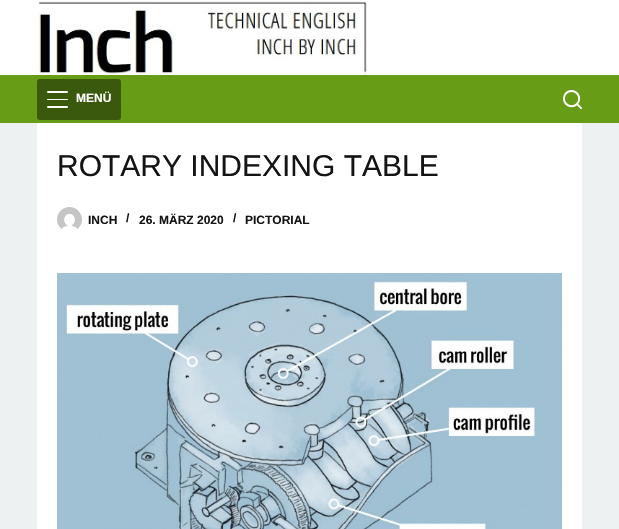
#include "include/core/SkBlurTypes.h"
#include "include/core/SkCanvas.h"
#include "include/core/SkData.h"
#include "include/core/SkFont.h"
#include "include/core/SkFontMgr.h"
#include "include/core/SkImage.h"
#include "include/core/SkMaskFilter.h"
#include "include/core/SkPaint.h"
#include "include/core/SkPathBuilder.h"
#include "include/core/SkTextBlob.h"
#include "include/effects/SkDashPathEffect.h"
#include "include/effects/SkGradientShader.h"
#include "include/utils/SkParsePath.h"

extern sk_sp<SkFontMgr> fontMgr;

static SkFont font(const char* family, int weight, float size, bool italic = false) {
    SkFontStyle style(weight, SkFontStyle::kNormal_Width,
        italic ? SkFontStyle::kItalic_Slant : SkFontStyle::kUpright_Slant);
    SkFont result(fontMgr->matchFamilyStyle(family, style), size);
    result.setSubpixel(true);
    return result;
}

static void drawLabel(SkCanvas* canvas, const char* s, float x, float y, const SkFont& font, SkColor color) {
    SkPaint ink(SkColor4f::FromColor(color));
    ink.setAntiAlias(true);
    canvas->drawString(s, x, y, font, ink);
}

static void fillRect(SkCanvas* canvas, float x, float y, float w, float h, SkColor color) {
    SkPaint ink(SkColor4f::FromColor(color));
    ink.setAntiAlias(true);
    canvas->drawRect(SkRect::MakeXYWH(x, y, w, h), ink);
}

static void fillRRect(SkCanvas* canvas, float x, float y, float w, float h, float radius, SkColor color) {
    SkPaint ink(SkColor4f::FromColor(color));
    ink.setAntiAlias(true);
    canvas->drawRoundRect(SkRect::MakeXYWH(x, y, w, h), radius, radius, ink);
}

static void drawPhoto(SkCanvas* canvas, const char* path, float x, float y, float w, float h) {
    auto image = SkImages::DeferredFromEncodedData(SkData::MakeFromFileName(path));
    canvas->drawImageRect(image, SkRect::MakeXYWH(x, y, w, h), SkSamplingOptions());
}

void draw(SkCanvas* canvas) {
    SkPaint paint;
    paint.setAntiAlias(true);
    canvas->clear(0xFFEEF1F2);
    fillRect(canvas, 0, 0, 619, 75, 0xFFFFFFFF);
    drawPhoto(canvas, "assets/img1.png", 37, 1, 330, 73);
    fillRect(canvas, 0, 75, 619, 48, 0xFF679C17);
    fillRRect(canvas, 37, 79, 84, 41, 3, 0xFF3A590D);
    fillRRect(canvas, 47, 91, 21, 2, 1, 0xFFFFFFFF);
    fillRRect(canvas, 47, 99, 21, 1, 0.5f, 0xFFFFFFFF);
    fillRRect(canvas, 47, 106, 21, 2, 1, 0xFFFFFFFF);
    SkFont font1 = font("Liberation Sans", 700, 12);
    drawLabel(canvas, "MENÜ", 76, 102, font1, 0xFFFFFFFF);
    drawPhoto(canvas, "assets/img2.png", 563, 90, 19, 19);
    fillRRect(canvas, 37, 123, 545, 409, 3, 0xFFFFFFFF);
    SkFont font2 = font("Liberation Sans", 400, 30);
    drawLabel(canvas, "ROTARY INDEXING TABLE", 57, 176, font2, 0xFF141414);
    drawPhoto(canvas, "assets/img3.png", 57, 207, 25, 22);
    drawLabel(canvas, "INCH", 88, 224, font1, 0xFF141414);
    drawLabel(canvas, "/", 126, 222, font1, 0xFF141414);
    drawLabel(canvas, "26. MÄRZ 2020", 139, 224, font1, 0xFF141414);
    drawLabel(canvas, "/", 233, 222, font1, 0xFF141414);
    drawLabel(canvas, "PICTORIAL", 245, 224, font1, 0xFF141414);
    drawPhoto(canvas, "assets/img4.png", 57, 273, 505, 256);
}
